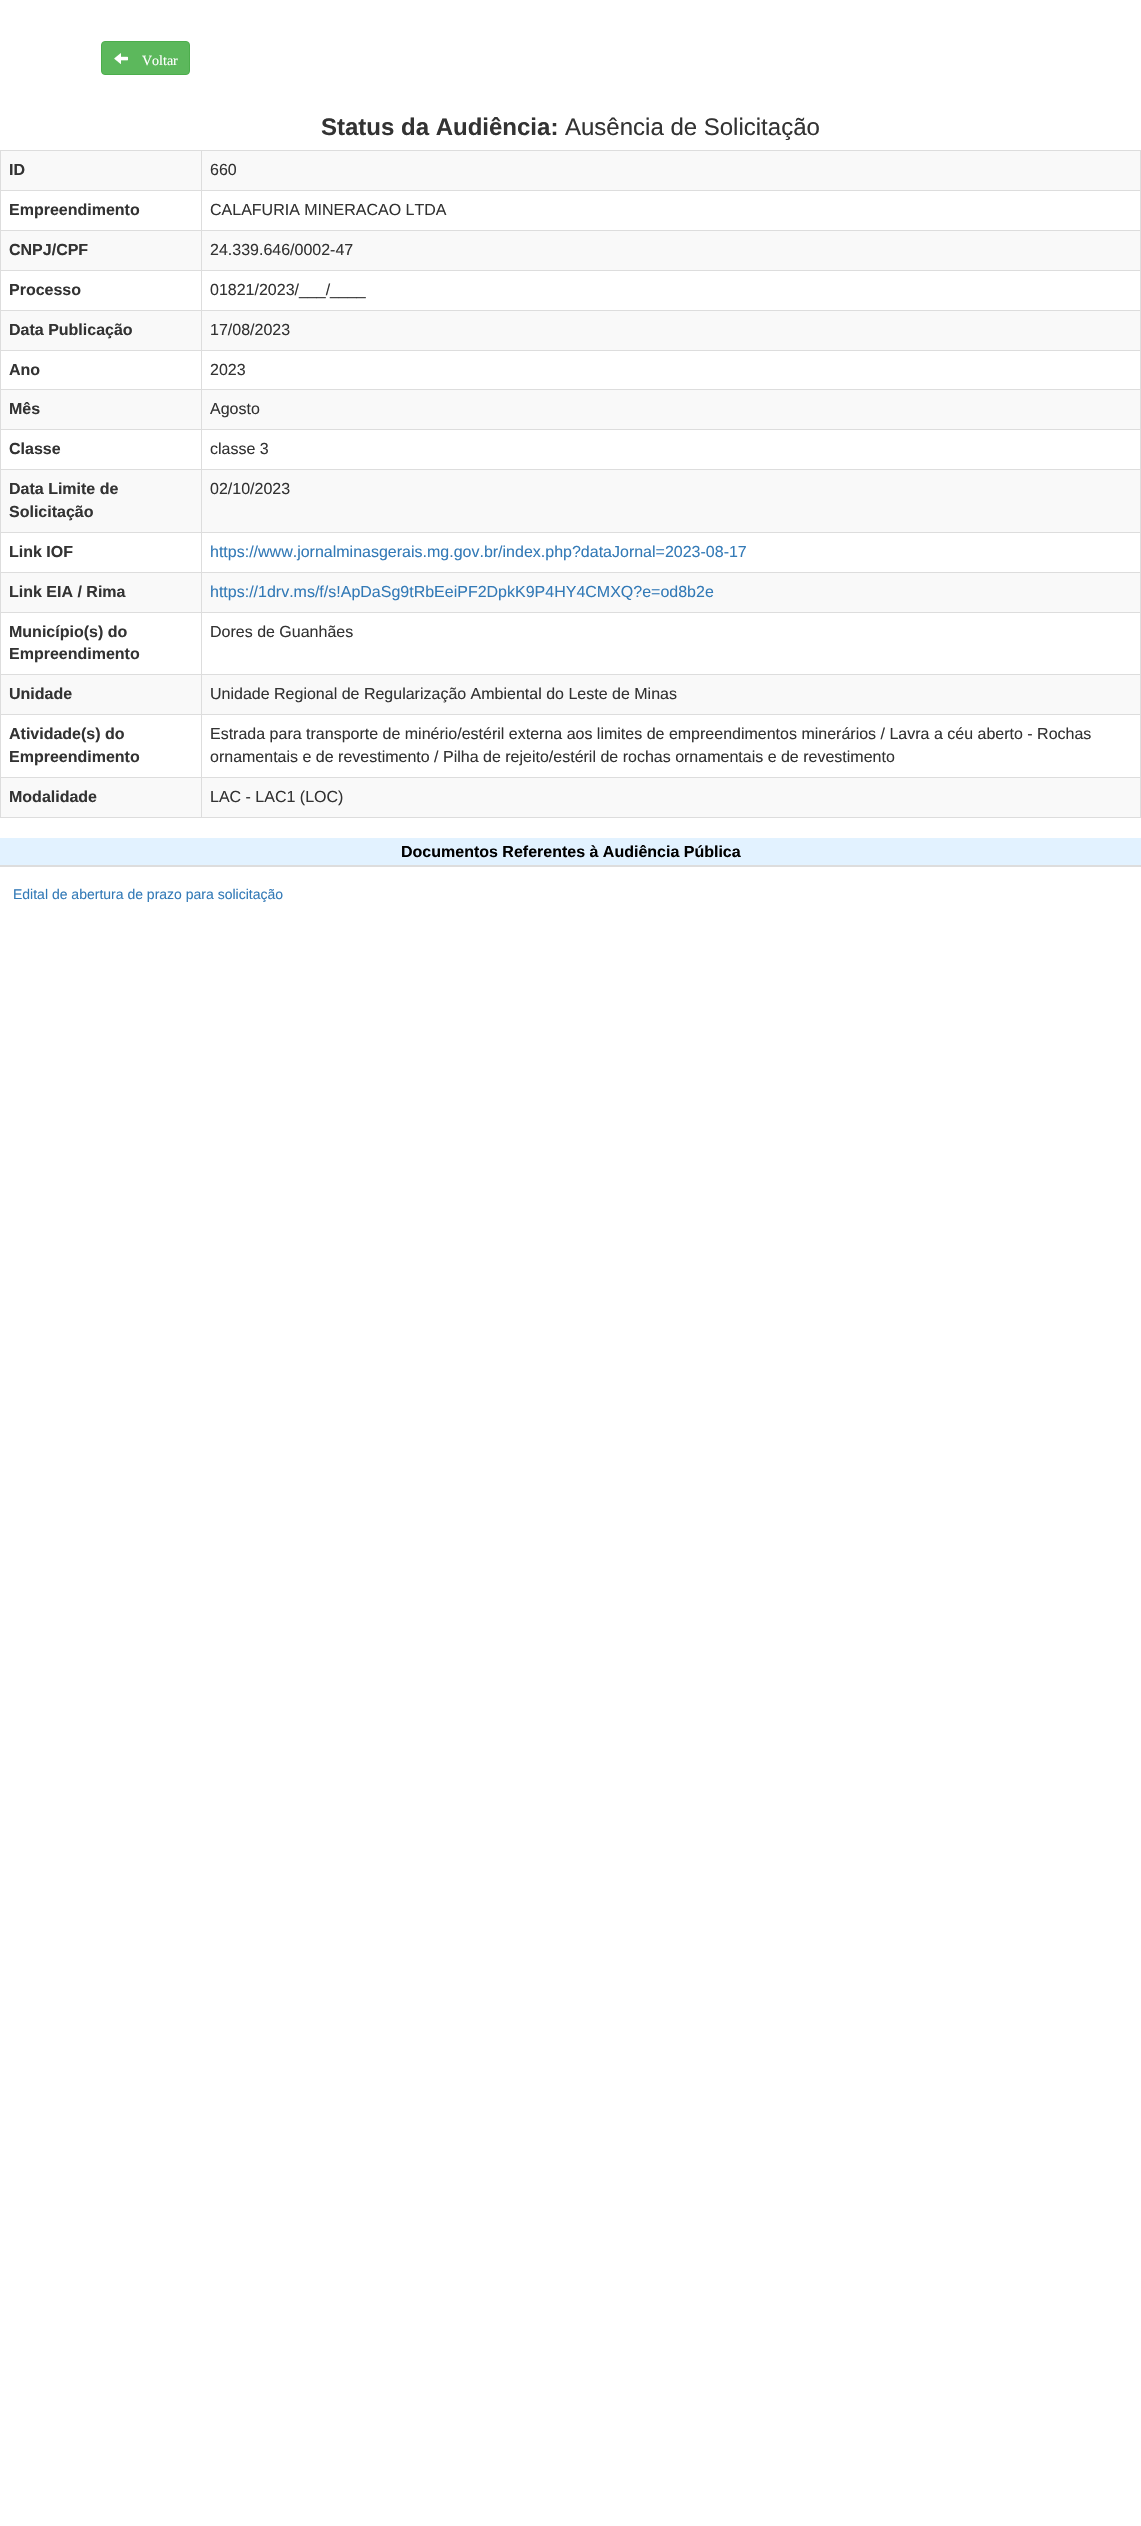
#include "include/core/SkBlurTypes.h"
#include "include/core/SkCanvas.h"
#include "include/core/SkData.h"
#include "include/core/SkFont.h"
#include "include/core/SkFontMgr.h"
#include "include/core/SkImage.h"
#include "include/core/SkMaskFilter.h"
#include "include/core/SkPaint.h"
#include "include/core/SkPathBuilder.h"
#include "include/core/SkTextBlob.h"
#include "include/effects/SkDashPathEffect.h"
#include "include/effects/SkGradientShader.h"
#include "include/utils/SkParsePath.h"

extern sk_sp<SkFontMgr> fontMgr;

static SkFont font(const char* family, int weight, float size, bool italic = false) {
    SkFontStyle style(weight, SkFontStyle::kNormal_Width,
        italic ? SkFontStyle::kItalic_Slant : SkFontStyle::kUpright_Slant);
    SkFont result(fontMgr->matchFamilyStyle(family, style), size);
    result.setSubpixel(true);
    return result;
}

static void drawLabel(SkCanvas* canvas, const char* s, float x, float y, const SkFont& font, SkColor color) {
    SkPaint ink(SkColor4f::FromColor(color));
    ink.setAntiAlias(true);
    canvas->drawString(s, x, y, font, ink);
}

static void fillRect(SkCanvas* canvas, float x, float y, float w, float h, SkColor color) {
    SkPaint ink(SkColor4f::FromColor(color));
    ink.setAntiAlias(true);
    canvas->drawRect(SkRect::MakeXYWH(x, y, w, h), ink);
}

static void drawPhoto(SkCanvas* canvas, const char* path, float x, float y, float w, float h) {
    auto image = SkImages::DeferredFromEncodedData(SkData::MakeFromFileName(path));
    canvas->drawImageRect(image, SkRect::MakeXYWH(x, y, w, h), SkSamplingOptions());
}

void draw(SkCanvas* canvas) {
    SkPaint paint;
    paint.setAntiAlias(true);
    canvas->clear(0xFFFFFFFF);
    paint.setColor(0xFF5CB85C);
    canvas->drawRoundRect(SkRect::MakeXYWH(101.5f, 41.5f, 88, 33), 3.5f, 3.5f, paint);
    paint.setStroke(true);
    paint.setStrokeWidth(1);
    paint.setColor(0xFF4CAE4C);
    canvas->drawRoundRect(SkRect::MakeXYWH(101.5f, 41.5f, 88, 33), 3.5f, 3.5f, paint);
    drawPhoto(canvas, "assets/img1.png", 114, 53, 14, 11);
    SkFont font1 = font("Liberation Serif", 400, 14);
    drawLabel(canvas, "Voltar", 142, 65, font1, 0xFFFFFFFF);
    SkFont font2 = font("Liberation Sans", 700, 24);
    drawLabel(canvas, "Status da Audiência:", 321, 135, font2, 0xFF333333);
    SkFont font3 = font("Liberation Sans", 400, 24);
    drawLabel(canvas, "Ausência de Solicitação", 565, 135, font3, 0xFF333333);
    fillRect(canvas, 0, 150, 1141, 1, 0xFFDDDDDD);
    fillRect(canvas, 1140, 150, 1, 668, 0xFFDDDDDD);
    fillRect(canvas, 0, 817, 1141, 1, 0xFFDDDDDD);
    fillRect(canvas, 0, 150, 1, 668, 0xFFDDDDDD);
    fillRect(canvas, 1, 151, 1139, 39, 0xFFF9F9F9);
    SkFont font4 = font("Liberation Sans", 700, 16);
    drawLabel(canvas, "ID", 9, 175, font4, 0xFF333333);
    fillRect(canvas, 201, 190, 940, 1, 0xFFDDDDDD);
    fillRect(canvas, 201, 230, 940, 1, 0xFFDDDDDD);
    fillRect(canvas, 1, 231, 1139, 39, 0xFFF9F9F9);
    fillRect(canvas, 201, 270, 940, 1, 0xFFDDDDDD);
    fillRect(canvas, 201, 310, 940, 1, 0xFFDDDDDD);
    fillRect(canvas, 1, 311, 1139, 39, 0xFFF9F9F9);
    fillRect(canvas, 201, 350, 940, 1, 0xFFDDDDDD);
    fillRect(canvas, 201, 389, 940, 1, 0xFFDDDDDD);
    fillRect(canvas, 1, 390, 1139, 39, 0xFFF9F9F9);
    fillRect(canvas, 201, 429, 940, 1, 0xFFDDDDDD);
    fillRect(canvas, 201, 469, 940, 1, 0xFFDDDDDD);
    fillRect(canvas, 1, 470, 1139, 62, 0xFFF9F9F9);
    fillRect(canvas, 201, 532, 940, 1, 0xFFDDDDDD);
    fillRect(canvas, 201, 572, 940, 1, 0xFFDDDDDD);
    fillRect(canvas, 1, 573, 1139, 39, 0xFFF9F9F9);
    fillRect(canvas, 201, 612, 940, 1, 0xFFDDDDDD);
    fillRect(canvas, 201, 674, 940, 1, 0xFFDDDDDD);
    fillRect(canvas, 1, 675, 1139, 39, 0xFFF9F9F9);
    fillRect(canvas, 201, 714, 940, 1, 0xFFDDDDDD);
    fillRect(canvas, 201, 777, 940, 1, 0xFFDDDDDD);
    fillRect(canvas, 1, 778, 1139, 39, 0xFFF9F9F9);
    fillRect(canvas, 201, 777, 1, 41, 0xFFDDDDDD);
    fillRect(canvas, 0, 777, 202, 1, 0xFFDDDDDD);
    fillRect(canvas, 201, 714, 1, 64, 0xFFDDDDDD);
    fillRect(canvas, 0, 714, 202, 1, 0xFFDDDDDD);
    fillRect(canvas, 201, 674, 1, 41, 0xFFDDDDDD);
    fillRect(canvas, 0, 674, 202, 1, 0xFFDDDDDD);
    fillRect(canvas, 201, 612, 1, 63, 0xFFDDDDDD);
    fillRect(canvas, 0, 612, 202, 1, 0xFFDDDDDD);
    fillRect(canvas, 201, 572, 1, 41, 0xFFDDDDDD);
    fillRect(canvas, 0, 572, 202, 1, 0xFFDDDDDD);
    fillRect(canvas, 201, 532, 1, 41, 0xFFDDDDDD);
    fillRect(canvas, 0, 532, 202, 1, 0xFFDDDDDD);
    fillRect(canvas, 201, 469, 1, 64, 0xFFDDDDDD);
    fillRect(canvas, 0, 469, 202, 1, 0xFFDDDDDD);
    fillRect(canvas, 201, 429, 1, 41, 0xFFDDDDDD);
    fillRect(canvas, 0, 429, 202, 1, 0xFFDDDDDD);
    fillRect(canvas, 201, 389, 1, 41, 0xFFDDDDDD);
    fillRect(canvas, 0, 389, 202, 1, 0xFFDDDDDD);
    fillRect(canvas, 201, 350, 1, 40, 0xFFDDDDDD);
    fillRect(canvas, 0, 350, 202, 1, 0xFFDDDDDD);
    fillRect(canvas, 201, 310, 1, 41, 0xFFDDDDDD);
    fillRect(canvas, 0, 310, 202, 1, 0xFFDDDDDD);
    fillRect(canvas, 201, 270, 1, 41, 0xFFDDDDDD);
    fillRect(canvas, 0, 270, 202, 1, 0xFFDDDDDD);
    fillRect(canvas, 201, 230, 1, 41, 0xFFDDDDDD);
    fillRect(canvas, 0, 230, 202, 1, 0xFFDDDDDD);
    fillRect(canvas, 201, 190, 1, 41, 0xFFDDDDDD);
    fillRect(canvas, 0, 190, 202, 1, 0xFFDDDDDD);
    fillRect(canvas, 201, 150, 1, 41, 0xFFDDDDDD);
    SkFont font5 = font("Liberation Sans", 400, 16);
    drawLabel(canvas, "660", 210, 175, font5, 0xFF333333);
    drawLabel(canvas, "Empreendimento", 9, 215, font4, 0xFF333333);
    drawLabel(canvas, "CALAFURIA MINERACAO LTDA", 210, 215, font5, 0xFF333333);
    drawLabel(canvas, "CNPJ/CPF", 9, 255, font4, 0xFF333333);
    drawLabel(canvas, "24.339.646/0002-47", 210, 255, font5, 0xFF333333);
    drawLabel(canvas, "Processo", 9, 295, font4, 0xFF333333);
    drawLabel(canvas, "01821/2023/___/____", 210, 295, font5, 0xFF333333);
    drawLabel(canvas, "Data Publicação", 9, 335, font4, 0xFF333333);
    drawLabel(canvas, "17/08/2023", 210, 335, font5, 0xFF333333);
    drawLabel(canvas, "Ano", 9, 375, font4, 0xFF333333);
    drawLabel(canvas, "2023", 210, 375, font5, 0xFF333333);
    drawLabel(canvas, "Mês", 9, 414, font4, 0xFF333333);
    drawLabel(canvas, "Agosto", 210, 414, font5, 0xFF333333);
    drawLabel(canvas, "Classe", 9, 454, font4, 0xFF333333);
    drawLabel(canvas, "classe 3", 210, 454, font5, 0xFF333333);
    drawLabel(canvas, "Data Limite de", 9, 494, font4, 0xFF333333);
    drawLabel(canvas, "Solicitação", 9, 517, font4, 0xFF333333);
    drawLabel(canvas, "02/10/2023", 210, 494, font5, 0xFF333333);
    drawLabel(canvas, "Link IOF", 9, 557, font4, 0xFF333333);
    drawLabel(canvas, "https://www.jornalminasgerais.mg.gov.br/index.php?dataJornal=2023-08-17", 210, 557, font5, 0xFF337AB7);
    drawLabel(canvas, "Link EIA / Rima", 9, 597, font4, 0xFF333333);
    drawLabel(canvas, "https://1drv.ms/f/s!ApDaSg9tRbEeiPF2DpkK9P4HY4CMXQ?e=od8b2e", 210, 597, font5, 0xFF337AB7);
    drawLabel(canvas, "Município(s) do", 9, 637, font4, 0xFF333333);
    drawLabel(canvas, "Empreendimento", 9, 659, font4, 0xFF333333);
    drawLabel(canvas, "Dores de Guanhães", 210, 637, font5, 0xFF333333);
    drawLabel(canvas, "Unidade", 9, 699, font4, 0xFF333333);
    drawLabel(canvas, "Unidade Regional de Regularização Ambiental do Leste de Minas", 210, 699, font5, 0xFF333333);
    drawLabel(canvas, "Atividade(s) do", 9, 739, font4, 0xFF333333);
    drawLabel(canvas, "Empreendimento", 9, 762, font4, 0xFF333333);
    drawLabel(canvas, "Estrada para transporte de minério/estéril externa aos limites de empreendimentos minerários / Lavra a céu aberto - Rochas", 210, 739, font5, 0xFF333333);
    drawLabel(canvas, "ornamentais e de revestimento / Pilha de rejeito/estéril de rochas ornamentais e de revestimento", 210, 762, font5, 0xFF333333);
    drawLabel(canvas, "Modalidade", 9, 802, font4, 0xFF333333);
    drawLabel(canvas, "LAC - LAC1 (LOC)", 210, 802, font5, 0xFF333333);
    fillRect(canvas, 0, 838, 1141, 27, 0xFFE2F2FF);
    fillRect(canvas, 0, 865, 1141, 2, 0xFFDDDDDD);
    drawLabel(canvas, "Documentos Referentes à Audiência Pública", 401, 857, font4, 0xFF000000);
    SkFont font6 = font("Liberation Sans", 400, 14);
    drawLabel(canvas, "Edital de abertura de prazo para solicitação", 13, 899, font6, 0xFF337AB7);
}
